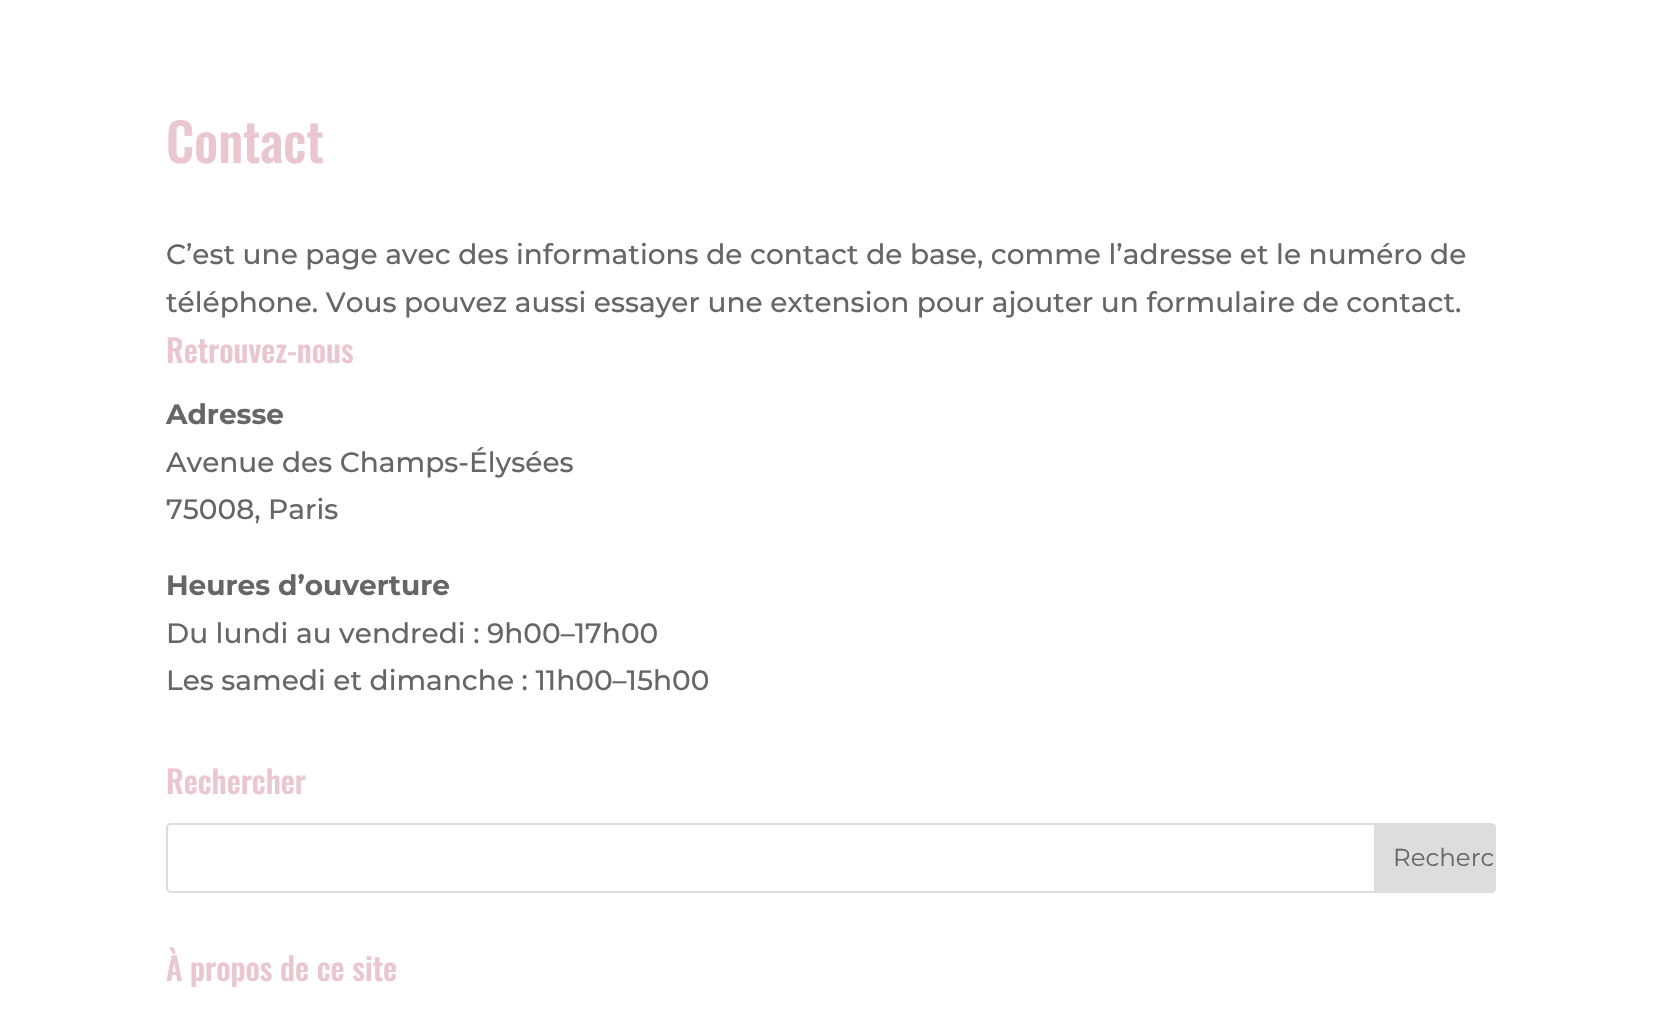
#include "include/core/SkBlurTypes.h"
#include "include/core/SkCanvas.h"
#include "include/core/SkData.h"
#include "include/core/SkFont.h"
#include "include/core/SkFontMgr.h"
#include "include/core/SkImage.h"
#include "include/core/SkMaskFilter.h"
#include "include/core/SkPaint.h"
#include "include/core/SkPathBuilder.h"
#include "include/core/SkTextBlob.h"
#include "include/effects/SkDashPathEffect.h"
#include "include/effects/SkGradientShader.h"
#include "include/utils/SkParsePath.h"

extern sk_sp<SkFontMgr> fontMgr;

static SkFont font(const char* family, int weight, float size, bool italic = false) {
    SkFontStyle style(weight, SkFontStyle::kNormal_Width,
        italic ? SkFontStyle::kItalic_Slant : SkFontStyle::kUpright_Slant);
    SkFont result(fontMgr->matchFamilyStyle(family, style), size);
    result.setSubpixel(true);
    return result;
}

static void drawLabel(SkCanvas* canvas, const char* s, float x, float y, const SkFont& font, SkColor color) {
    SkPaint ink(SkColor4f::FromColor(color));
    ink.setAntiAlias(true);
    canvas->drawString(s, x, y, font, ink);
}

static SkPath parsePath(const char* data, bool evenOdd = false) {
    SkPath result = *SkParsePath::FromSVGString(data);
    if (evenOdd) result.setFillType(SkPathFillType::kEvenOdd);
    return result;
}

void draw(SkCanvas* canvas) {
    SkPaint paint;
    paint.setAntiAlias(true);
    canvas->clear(0xFFFFFFFF);
    SkFont font1 = font("Oswald", 500, 52.5f);
    drawLabel(canvas, "Contact", 166, 163, font1, 0xFFEAC6CE);
    SkFont font2 = font("Montserrat", 100, 28);
    drawLabel(canvas, "C’est une page avec des informations de contact de base, comme l’adresse et le numéro de", 166, 264, font2, 0xFF666666);
    drawLabel(canvas, "téléphone. Vous pouvez aussi essayer une extension pour ajouter un formulaire de contact.", 166, 312, font2, 0xFF666666);
    SkFont font3 = font("Oswald", 500, 31.5f);
    drawLabel(canvas, "Retrouvez-nous", 166, 363, font3, 0xFFEAC6CE);
    SkFont font4 = font("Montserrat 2", 100, 28);
    drawLabel(canvas, "Adresse", 166, 424, font4, 0xFF666666);
    drawLabel(canvas, "Avenue des Champs-Élysées", 166, 472, font2, 0xFF666666);
    drawLabel(canvas, "75008, Paris", 166, 519, font2, 0xFF666666);
    drawLabel(canvas, "Heures d’ouverture", 166, 595, font4, 0xFF666666);
    drawLabel(canvas, "Du lundi au vendredi : 9h00–17h00", 166, 643, font2, 0xFF666666);
    drawLabel(canvas, "Les samedi et dimanche : 11h00–15h00", 166, 690, font2, 0xFF666666);
    drawLabel(canvas, "Rechercher", 166, 794, font3, 0xFFEAC6CE);
    paint.setStroke(true);
    paint.setStrokeWidth(2);
    paint.setColor(0xFFDDDDDD);
    canvas->drawRoundRect(SkRect::MakeXYWH(167, 824, 1328, 68), 4, 4, paint);
    paint.setStroke(false);
    canvas->drawPath(parsePath("M1375 824H1491C1493 824 1495 826 1495 828V888C1495 890 1493 892 1491 892H1375Z"), paint);
    paint.setStroke(true);
    canvas->drawPath(parsePath("M1375 824H1491C1493 824 1495 826 1495 828V888C1495 890 1493 892 1491 892H1375Z"), paint);
    SkFont font5 = font("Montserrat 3", 100, 24.5f);
    drawLabel(canvas, "Recherc", 1393, 866, font5, 0xFF666666);
    drawLabel(canvas, "À propos de ce site", 166, 981, font3, 0xFFEAC6CE);
}
